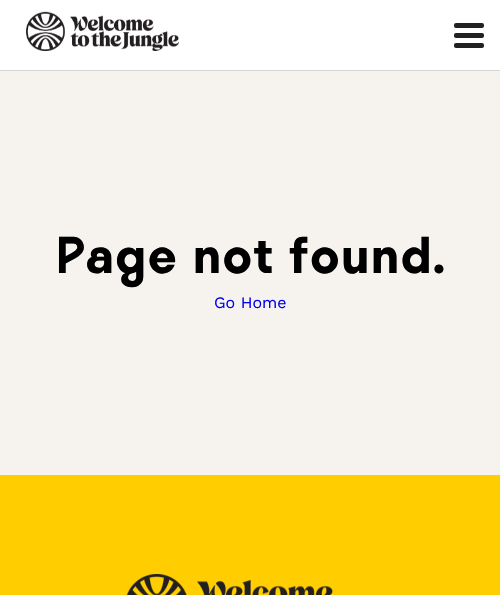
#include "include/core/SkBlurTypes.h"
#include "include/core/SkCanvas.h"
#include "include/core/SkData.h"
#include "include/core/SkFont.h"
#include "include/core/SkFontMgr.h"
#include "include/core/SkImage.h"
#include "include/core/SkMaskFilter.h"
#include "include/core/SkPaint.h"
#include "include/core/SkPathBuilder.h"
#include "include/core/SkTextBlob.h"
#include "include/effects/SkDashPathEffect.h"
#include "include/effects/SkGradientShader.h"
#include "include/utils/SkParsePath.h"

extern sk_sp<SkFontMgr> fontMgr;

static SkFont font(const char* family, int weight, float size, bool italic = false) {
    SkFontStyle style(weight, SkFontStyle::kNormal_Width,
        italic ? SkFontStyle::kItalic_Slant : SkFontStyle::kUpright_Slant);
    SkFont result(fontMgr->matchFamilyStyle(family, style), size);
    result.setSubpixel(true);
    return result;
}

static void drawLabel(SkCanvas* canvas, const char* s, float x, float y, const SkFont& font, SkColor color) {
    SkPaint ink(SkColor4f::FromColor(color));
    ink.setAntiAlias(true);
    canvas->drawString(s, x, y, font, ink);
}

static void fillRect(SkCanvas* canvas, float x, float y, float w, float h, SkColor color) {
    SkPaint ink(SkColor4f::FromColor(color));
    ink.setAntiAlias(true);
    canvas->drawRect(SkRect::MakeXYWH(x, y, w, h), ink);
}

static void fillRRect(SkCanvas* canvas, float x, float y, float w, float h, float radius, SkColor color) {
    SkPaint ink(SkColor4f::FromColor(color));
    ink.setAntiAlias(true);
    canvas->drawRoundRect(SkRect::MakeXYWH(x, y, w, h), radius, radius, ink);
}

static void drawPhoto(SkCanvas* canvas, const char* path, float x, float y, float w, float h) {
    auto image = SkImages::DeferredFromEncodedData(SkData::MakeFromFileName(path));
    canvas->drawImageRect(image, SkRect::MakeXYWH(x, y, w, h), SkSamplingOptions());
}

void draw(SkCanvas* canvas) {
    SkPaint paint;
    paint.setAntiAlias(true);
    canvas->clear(0xFFF6F3EF);
    fillRect(canvas, 0, 0, 500, 70, 0xFFFFFFFF);
    fillRect(canvas, 0, 70, 500, 1, 0xFFD5D5D5);
    drawPhoto(canvas, "assets/img1.png", 26, 11, 153, 40);
    fillRRect(canvas, 454, 23, 30, 5, 2, 0xFF212121);
    fillRRect(canvas, 454, 33, 30, 5, 2, 0xFF212121);
    fillRRect(canvas, 454, 43, 30, 5, 2, 0xFF212121);
    SkFont font1 = font("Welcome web", 700, 48);
    drawLabel(canvas, "Page not found.", 55, 273, font1, 0xFF000000);
    SkFont font2 = font("Work Sans", 400, 16);
    drawLabel(canvas, "Go Home", 214, 308, font2, 0xFF0000EE);
    fillRect(canvas, 0, 475, 500, 120, 0xFFFFCD00);
    drawPhoto(canvas, "assets/img2.png", 126, 574, 207, 21);
}
